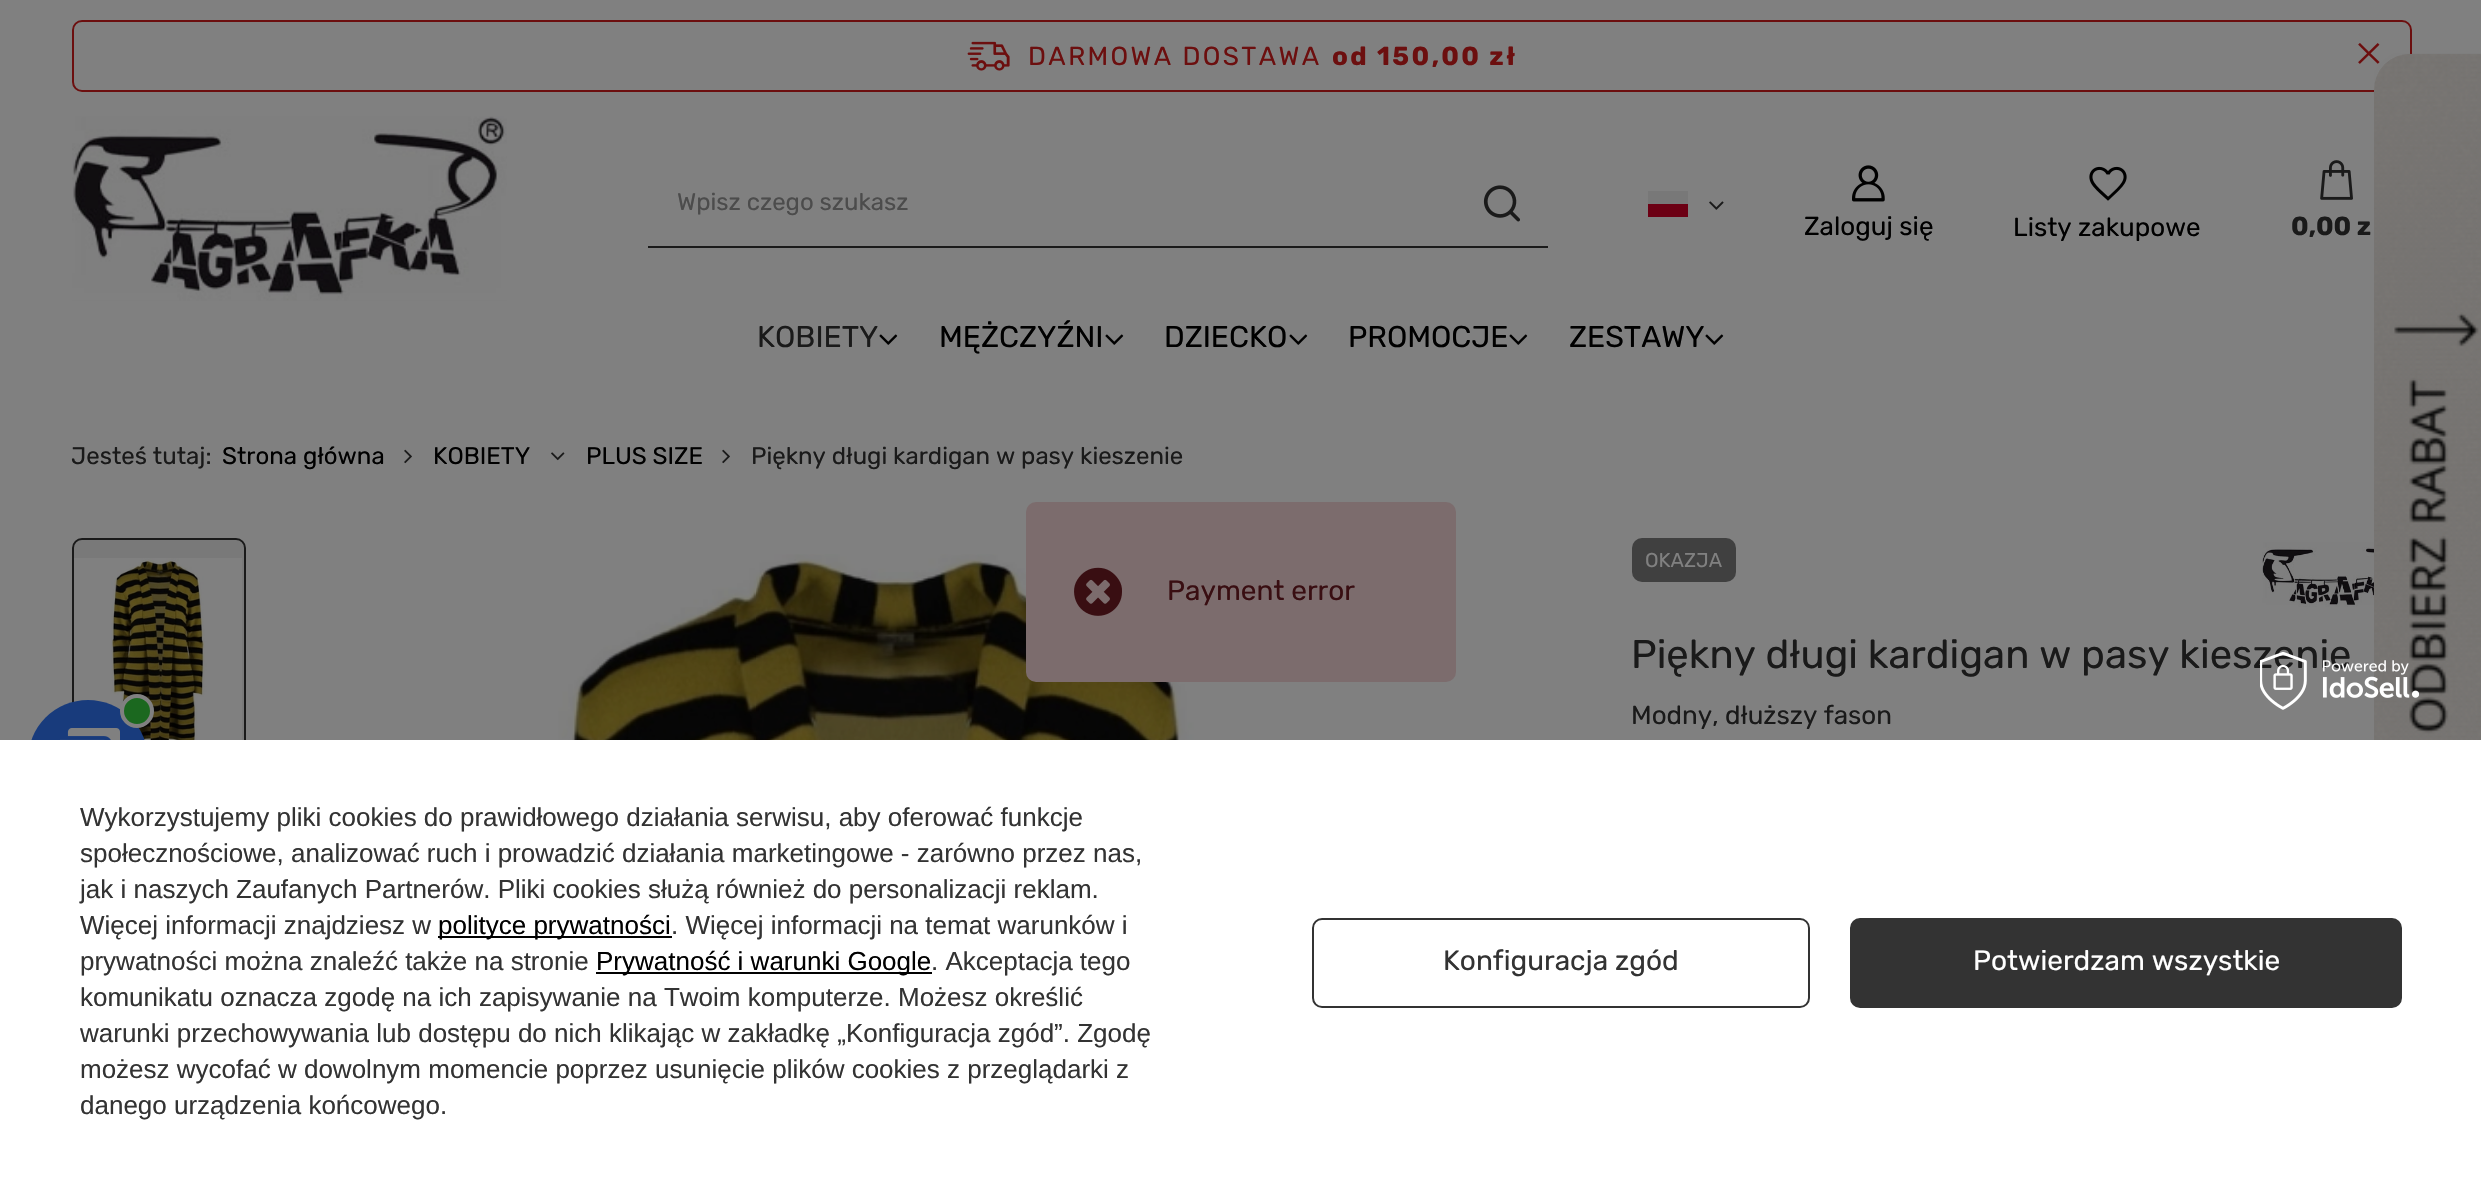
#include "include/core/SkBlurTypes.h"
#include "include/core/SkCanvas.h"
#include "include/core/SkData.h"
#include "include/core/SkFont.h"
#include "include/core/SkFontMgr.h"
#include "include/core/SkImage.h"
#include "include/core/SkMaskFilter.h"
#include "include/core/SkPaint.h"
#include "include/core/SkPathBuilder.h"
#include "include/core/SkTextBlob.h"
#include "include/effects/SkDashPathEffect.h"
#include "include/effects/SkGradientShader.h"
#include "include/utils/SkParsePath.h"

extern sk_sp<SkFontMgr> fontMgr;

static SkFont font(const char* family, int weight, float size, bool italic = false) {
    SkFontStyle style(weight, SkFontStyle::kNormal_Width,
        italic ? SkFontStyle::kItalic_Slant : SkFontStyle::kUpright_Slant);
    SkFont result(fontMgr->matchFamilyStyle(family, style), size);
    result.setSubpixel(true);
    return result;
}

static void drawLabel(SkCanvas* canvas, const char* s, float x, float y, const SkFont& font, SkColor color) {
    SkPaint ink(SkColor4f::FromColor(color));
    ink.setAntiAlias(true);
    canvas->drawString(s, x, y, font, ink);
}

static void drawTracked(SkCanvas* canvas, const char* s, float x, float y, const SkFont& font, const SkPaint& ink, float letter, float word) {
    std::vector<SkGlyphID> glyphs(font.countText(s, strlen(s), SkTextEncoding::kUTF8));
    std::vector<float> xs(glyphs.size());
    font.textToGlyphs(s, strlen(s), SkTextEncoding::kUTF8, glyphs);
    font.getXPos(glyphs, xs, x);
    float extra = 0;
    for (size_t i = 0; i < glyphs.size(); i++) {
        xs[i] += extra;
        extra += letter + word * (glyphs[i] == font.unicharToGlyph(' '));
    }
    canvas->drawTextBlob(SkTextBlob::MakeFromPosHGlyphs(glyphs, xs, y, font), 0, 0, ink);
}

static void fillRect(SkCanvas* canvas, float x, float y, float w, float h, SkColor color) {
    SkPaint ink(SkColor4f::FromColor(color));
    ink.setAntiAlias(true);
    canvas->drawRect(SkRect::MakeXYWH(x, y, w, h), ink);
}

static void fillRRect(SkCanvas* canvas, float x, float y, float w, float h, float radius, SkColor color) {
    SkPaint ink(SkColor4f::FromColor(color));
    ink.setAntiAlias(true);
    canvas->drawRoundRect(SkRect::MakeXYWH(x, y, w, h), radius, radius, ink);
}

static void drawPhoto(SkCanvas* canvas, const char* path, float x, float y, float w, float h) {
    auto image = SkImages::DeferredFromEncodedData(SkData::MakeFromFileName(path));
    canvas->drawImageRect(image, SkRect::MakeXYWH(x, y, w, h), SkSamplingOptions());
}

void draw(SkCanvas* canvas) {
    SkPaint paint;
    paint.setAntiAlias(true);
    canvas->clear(0xFF808080);
    paint.setStroke(true);
    paint.setStrokeWidth(2);
    paint.setColor(0xFF6C0F0F);
    canvas->drawRoundRect(SkRect::MakeXYWH(73, 21, 2338, 70), 9, 9, paint);
    drawPhoto(canvas, "assets/img1.png", 967, 41, 43, 30);
    SkFont font1 = font("Rubik", 400, 26);
    paint.setStroke(false);
    drawTracked(canvas, "DARMOWA DOSTAWA", 1028, 65, font1, paint, 2.4f, 0);
    SkFont font2 = font("Rubik", 700, 26);
    drawTracked(canvas, "od 150,00 zł", 1332, 65, font2, paint, 2.4f, 0);
    drawPhoto(canvas, "assets/img2.png", 2358, 43, 22, 21);
    drawPhoto(canvas, "assets/img3.png", 72, 116, 435, 185);
    fillRect(canvas, 648, 246, 900, 2, 0xFF1A1A1A);
    SkFont font3 = font("Rubik", 400, 24);
    drawLabel(canvas, "Wpisz czego szukasz", 677, 210, font3, 0xFF4C4C4C);
    drawPhoto(canvas, "assets/img4.png", 1483, 185, 37, 37);
    fillRect(canvas, 1648, 191, 40, 13, 0xFF787878);
    fillRect(canvas, 1648, 204, 40, 13, 0xFF6C0014);
    drawPhoto(canvas, "assets/img5.png", 1709, 201, 15, 9);
    drawPhoto(canvas, "assets/img6.png", 1852, 165, 33, 37);
    drawLabel(canvas, "Zaloguj się", 1804, 235, font1, 0xFF000000);
    drawPhoto(canvas, "assets/img7.png", 2089, 166, 38, 35);
    drawLabel(canvas, "Listy zakupowe", 2013, 236, font1, 0xFF000000);
    drawPhoto(canvas, "assets/img8.png", 2320, 160, 33, 40);
    drawLabel(canvas, "0,00 z", 2291, 235, font2, 0xFF1A1A1A);
    SkFont font4 = font("Rubik", 400, 30);
    drawLabel(canvas, "KOBIETY", 757, 347, font4, 0xFF1A1A1A);
    drawPhoto(canvas, "assets/img9.png", 879, 334, 19, 11);
    drawLabel(canvas, "MĘŻCZYŹNI", 939, 347, font4, 0xFF000000);
    drawPhoto(canvas, "assets/img9.png", 1105, 334, 19, 11);
    drawLabel(canvas, "DZIECKO", 1164, 347, font4, 0xFF000000);
    drawPhoto(canvas, "assets/img9.png", 1289, 334, 19, 11);
    drawLabel(canvas, "PROMOCJE", 1348, 347, font4, 0xFF000000);
    drawPhoto(canvas, "assets/img9.png", 1509, 334, 19, 11);
    drawLabel(canvas, "ZESTAWY", 1569, 347, font4, 0xFF000000);
    drawPhoto(canvas, "assets/img9.png", 1705, 334, 19, 11);
    drawLabel(canvas, "Jesteś tutaj:", 71, 464, font3, 0xFF1A1A1A);
    drawLabel(canvas, "Strona główna", 222, 464, font3, 0xFF000000);
    drawPhoto(canvas, "assets/img10.png", 404, 449, 8, 15);
    drawLabel(canvas, "KOBIETY", 433, 464, font3, 0xFF000000);
    drawPhoto(canvas, "assets/img11.png", 551, 452, 14, 9);
    drawLabel(canvas, "PLUS SIZE", 586, 464, font3, 0xFF000000);
    drawPhoto(canvas, "assets/img10.png", 722, 449, 8, 15);
    drawLabel(canvas, "Piękny długi kardigan w pasy kieszenie", 751, 464, font3, 0xFF1A1A1A);
    paint.setColor(0xFF797979);
    canvas->drawRoundRect(SkRect::MakeXYWH(73, 539, 172, 230), 9, 9, paint);
    paint.setStroke(true);
    paint.setColor(0xFF1A1A1A);
    canvas->drawRoundRect(SkRect::MakeXYWH(73, 539, 172, 230), 9, 9, paint);
    drawPhoto(canvas, "assets/img12.png", 74, 558, 168, 182);
    drawPhoto(canvas, "assets/img13.png", 543, 554, 676, 186);
    fillRRect(canvas, 1632, 538, 104, 44, 10, 0xFF404040);
    SkFont font5 = font("Rubik", 400, 20);
    drawLabel(canvas, "OKAZJA", 1645, 567, font5, 0xFF808080);
    drawPhoto(canvas, "assets/img14.png", 2262, 542, 112, 65);
    SkFont font6 = font("Rubik", 400, 40);
    drawLabel(canvas, "Piękny długi kardigan w pasy kieszenie", 1631, 668, font6, 0xFF1A1A1A);
    drawLabel(canvas, "Modny, dłuższy fason", 1631, 724, font1, 0xFF1A1A1A);
    drawPhoto(canvas, "assets/img15.png", 2374, 53, 107, 687);
    fillRRect(canvas, 1026, 502, 430, 180, 10, 0xFF7C6C6D);
    drawPhoto(canvas, "assets/img16.png", 1074, 567, 48, 49);
    SkFont font7 = font("Rubik", 400, 28);
    drawLabel(canvas, "Payment error", 1167, 600, font7, 0xFF390E12);
    paint.setStroke(false);
    paint.setColor(0xFF183B7C);
    canvas->drawCircle(88, 760, 60, paint);
    paint.setColor(0xFF1B681F);
    canvas->drawCircle(137, 711, 15, paint);
    paint.setStroke(true);
    paint.setStrokeWidth(4);
    paint.setColor(0xFF808080);
    canvas->drawCircle(137, 711, 15, paint);
    drawPhoto(canvas, "assets/img17.png", 60, 728, 60, 12);
    fillRect(canvas, 0, 740, 2481, 443, 0xFFFFFFFF);
    drawPhoto(canvas, "assets/img18.png", 2260, 652, 159, 58);
    SkFont font8 = font("Liberation Sans", 400, 26);
    drawLabel(canvas, "Wykorzystujemy pliki cookies do prawidłowego działania serwisu, aby oferować funkcje", 80, 826, font8, 0xFF333333);
    drawLabel(canvas, "społecznościowe, analizować ruch i prowadzić działania marketingowe - zarówno przez nas,", 80, 862, font8, 0xFF333333);
    drawLabel(canvas, "jak i naszych Zaufanych Partnerów. Pliki cookies służą również do personalizacji reklam.", 80, 898, font8, 0xFF333333);
    drawLabel(canvas, "Więcej informacji znajdziesz w", 80, 934, font8, 0xFF333333);
    fillRect(canvas, 438, 936, 234, 2, 0xFF000000);
    drawLabel(canvas, "polityce prywatności", 438, 934, font8, 0xFF000000);
    drawLabel(canvas, ". Więcej informacji na temat warunków i", 671, 934, font8, 0xFF333333);
    drawLabel(canvas, "prywatności można znaleźć także na stronie", 80, 970, font8, 0xFF333333);
    fillRect(canvas, 596, 972, 336, 2, 0xFF000000);
    drawLabel(canvas, "Prywatność i warunki Google", 596, 970, font8, 0xFF000000);
    drawLabel(canvas, ". Akceptacja tego", 931, 970, font8, 0xFF333333);
    drawLabel(canvas, "komunikatu oznacza zgodę na ich zapisywanie na Twoim komputerze. Możesz określić", 80, 1006, font8, 0xFF333333);
    drawLabel(canvas, "warunki przechowywania lub dostępu do nich klikając w zakładkę „Konfiguracja zgód”. Zgodę", 80, 1042, font8, 0xFF333333);
    drawLabel(canvas, "możesz wycofać w dowolnym momencie poprzez usunięcie plików cookies z przeglądarki z", 80, 1078, font8, 0xFF333333);
    drawLabel(canvas, "danego urządzenia końcowego.", 80, 1114, font8, 0xFF333333);
    paint.setStrokeWidth(2);
    paint.setColor(0xFF333333);
    canvas->drawRoundRect(SkRect::MakeXYWH(1313, 919, 496, 88), 9, 9, paint);
    drawLabel(canvas, "Konfiguracja zgód", 1443, 970, font7, 0xFF333333);
    paint.setStroke(false);
    canvas->drawRoundRect(SkRect::MakeXYWH(1851, 919, 550, 88), 9, 9, paint);
    paint.setStroke(true);
    canvas->drawRoundRect(SkRect::MakeXYWH(1851, 919, 550, 88), 9, 9, paint);
    drawLabel(canvas, "Potwierdzam wszystkie", 1973, 970, font7, 0xFFFFFFFF);
}
